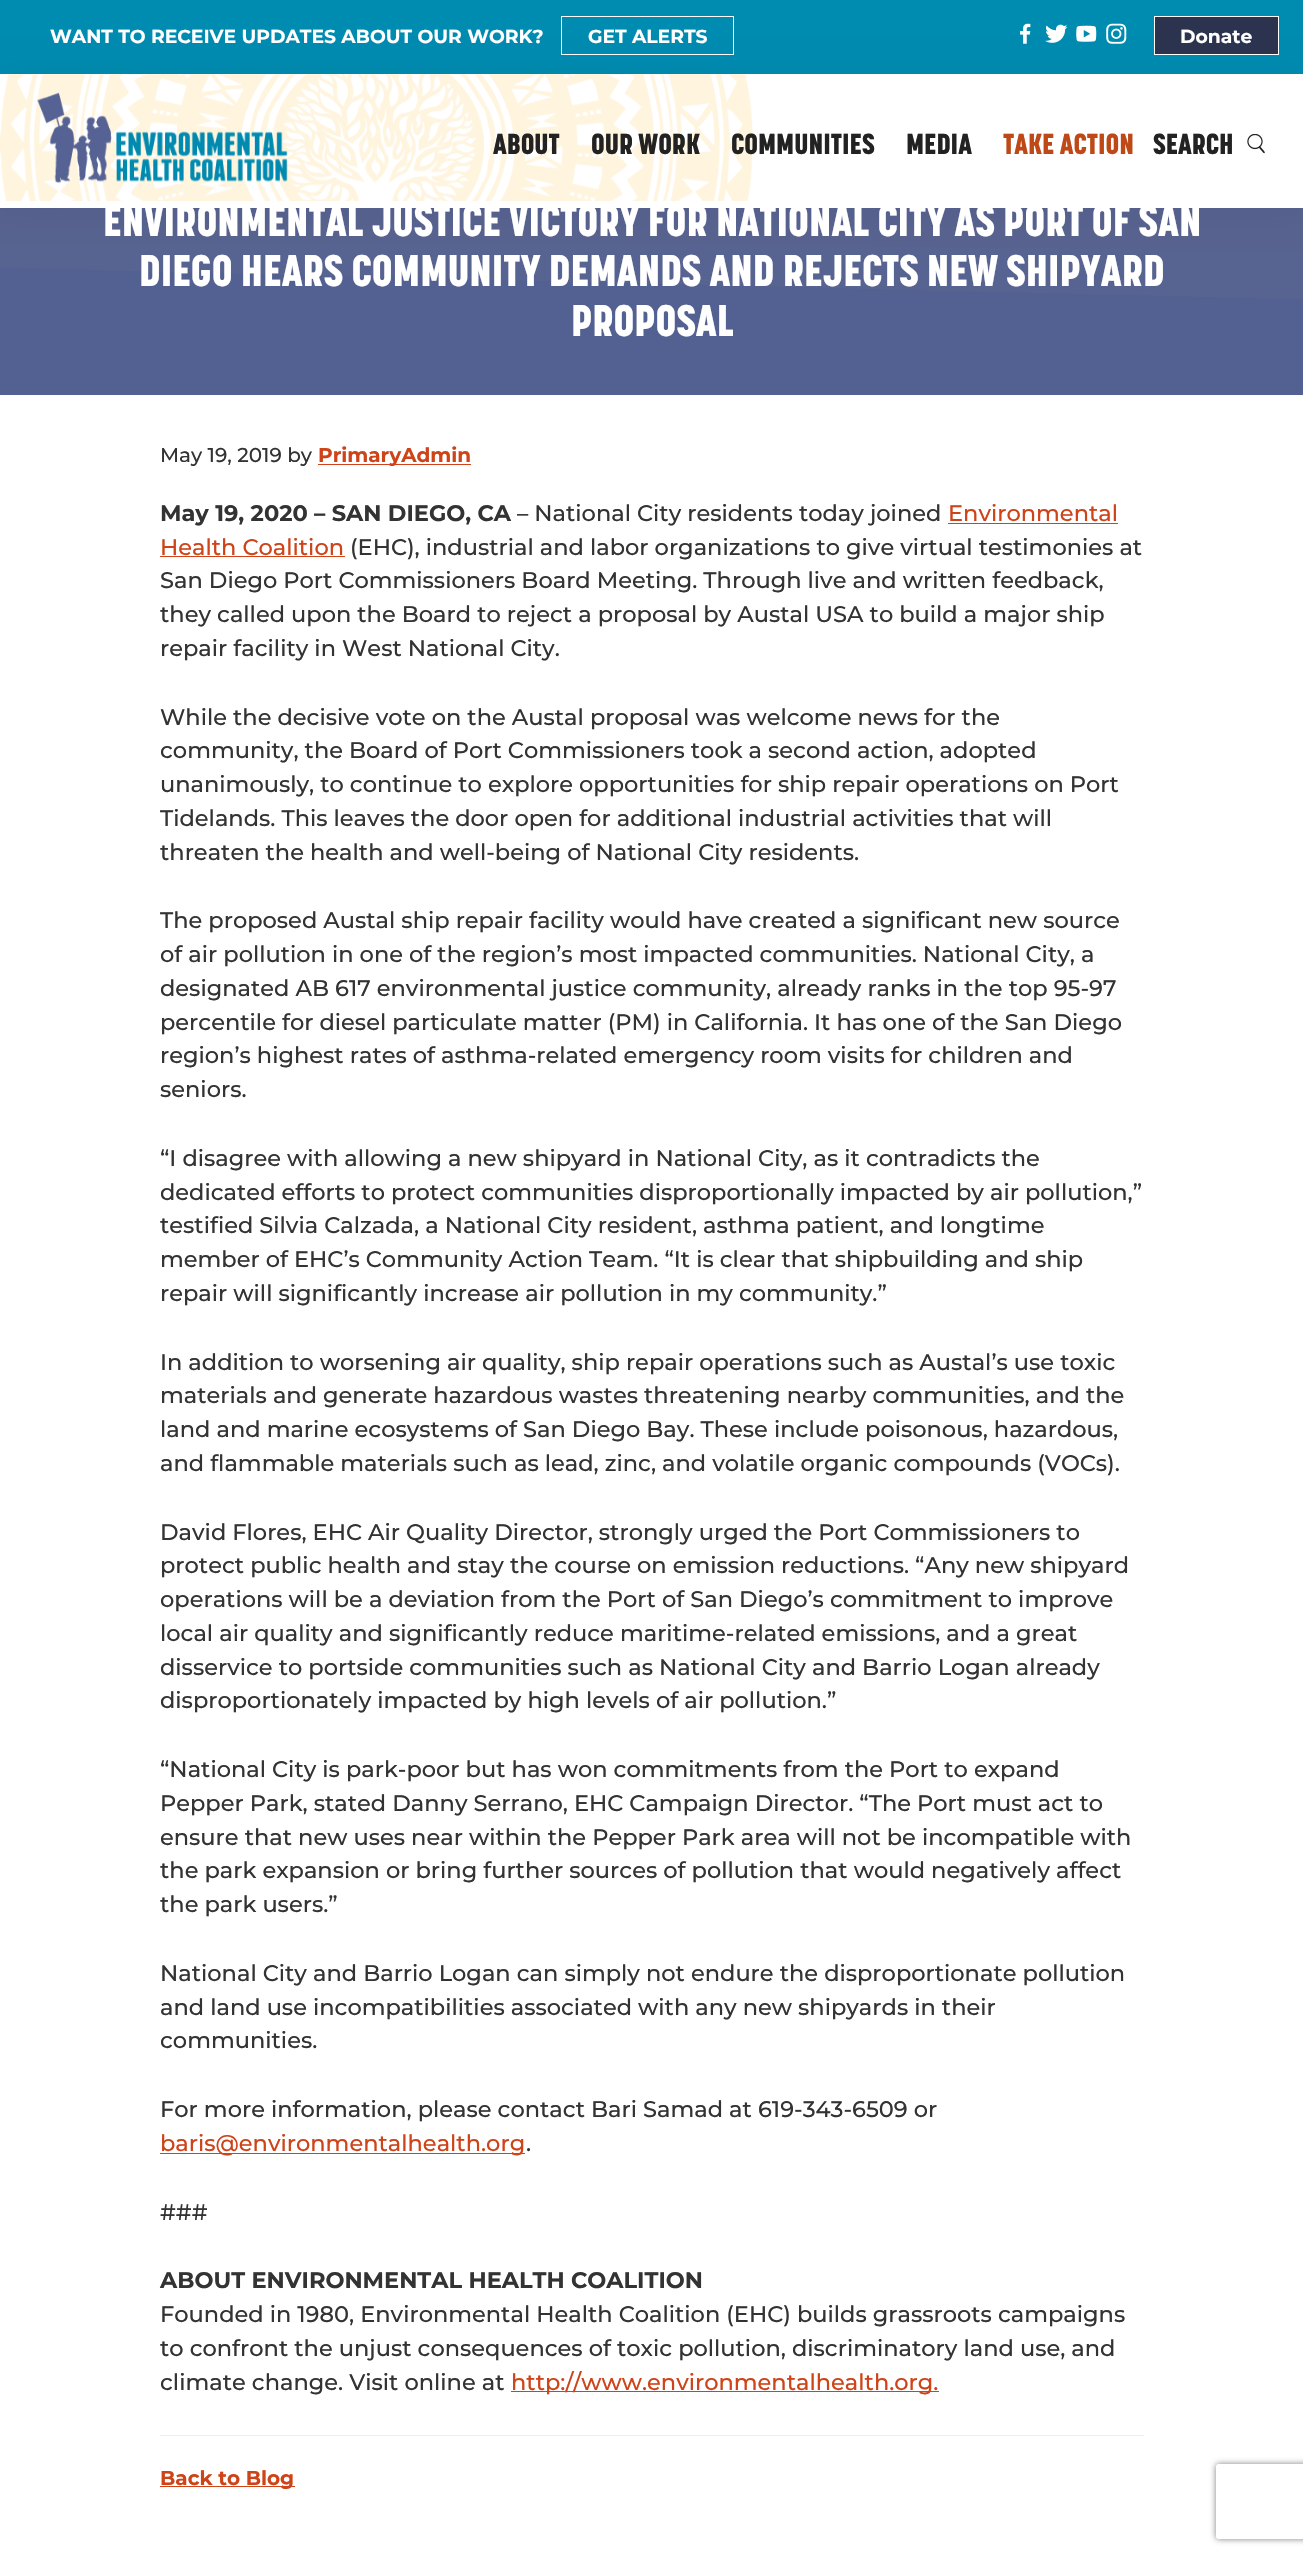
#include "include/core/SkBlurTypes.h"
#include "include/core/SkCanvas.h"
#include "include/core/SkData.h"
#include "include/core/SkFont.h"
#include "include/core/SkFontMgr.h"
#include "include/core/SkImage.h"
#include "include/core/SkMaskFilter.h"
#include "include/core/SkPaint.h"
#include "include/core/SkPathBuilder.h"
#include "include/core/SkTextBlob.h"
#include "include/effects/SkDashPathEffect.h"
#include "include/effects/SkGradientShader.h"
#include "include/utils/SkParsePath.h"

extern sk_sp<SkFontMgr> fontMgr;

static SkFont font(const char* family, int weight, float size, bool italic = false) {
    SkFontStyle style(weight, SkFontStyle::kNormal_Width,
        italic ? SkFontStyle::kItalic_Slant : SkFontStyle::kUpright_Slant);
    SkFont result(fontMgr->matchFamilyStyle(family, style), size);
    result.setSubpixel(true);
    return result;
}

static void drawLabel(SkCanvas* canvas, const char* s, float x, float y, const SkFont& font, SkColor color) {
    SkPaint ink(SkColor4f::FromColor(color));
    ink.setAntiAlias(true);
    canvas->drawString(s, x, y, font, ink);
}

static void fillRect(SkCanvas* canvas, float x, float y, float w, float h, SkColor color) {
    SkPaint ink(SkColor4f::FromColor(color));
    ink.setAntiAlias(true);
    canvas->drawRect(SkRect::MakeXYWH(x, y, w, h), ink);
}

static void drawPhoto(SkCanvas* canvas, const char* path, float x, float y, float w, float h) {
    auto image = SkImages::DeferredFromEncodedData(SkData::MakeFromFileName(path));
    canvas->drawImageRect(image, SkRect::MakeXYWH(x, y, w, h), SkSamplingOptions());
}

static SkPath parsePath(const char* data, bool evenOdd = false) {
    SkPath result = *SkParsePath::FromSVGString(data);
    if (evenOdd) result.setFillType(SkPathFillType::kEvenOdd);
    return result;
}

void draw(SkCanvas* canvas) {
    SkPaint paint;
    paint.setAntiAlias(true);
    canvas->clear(0xFFFFFFFF);
    fillRect(canvas, 0, 0, 1303, 74, 0xFF008BB0);
    SkFont font1 = font("Montserrat", 700, 18.75f);
    drawLabel(canvas, "WANT TO RECEIVE UPDATES ABOUT OUR WORK?", 50, 43, font1, 0xFFFFFFFF);
    paint.setStroke(true);
    paint.setStrokeWidth(1);
    paint.setColor(0xFFFFFFFF);
    canvas->drawRect(SkRect::MakeXYWH(561.5f, 16.5f, 172, 38), paint);
    drawLabel(canvas, "GET ALERTS", 588, 43, font1, 0xFFFFFFFF);
    drawPhoto(canvas, "assets/img1.png", 1020, 23, 11, 21);
    drawPhoto(canvas, "assets/img2.png", 1045, 24, 23, 19);
    drawPhoto(canvas, "assets/img3.png", 1076, 25, 21, 17);
    drawPhoto(canvas, "assets/img4.png", 1106, 23, 21, 21);
    paint.setStroke(false);
    paint.setColor(0xFF2B334F);
    canvas->drawRect(SkRect::MakeXYWH(1154.5f, 16.5f, 124, 38), paint);
    paint.setStroke(true);
    paint.setColor(0xFFFFFFFF);
    canvas->drawRect(SkRect::MakeXYWH(1154.5f, 16.5f, 124, 38), paint);
    drawLabel(canvas, "Donate", 1180, 43, font1, 0xFFFFFFFF);
    drawPhoto(canvas, "assets/img9.png", 0, 208, 1303, 119);
    paint.setStroke(false);
    paint.setColor(0x0D000000);
    paint.setMaskFilter(SkMaskFilter::MakeBlur(kNormal_SkBlurStyle, 12.5f));
    canvas->drawRect(SkRect::MakeXYWH(0, 74, 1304, 134), paint);
    paint.setMaskFilter(nullptr);
    fillRect(canvas, 0, 74, 1303, 134, 0xFFFFFFFF);
    drawPhoto(canvas, "assets/img5.png", 0, 74, 753, 127);
    drawPhoto(canvas, "assets/img6.png", 37, 92, 251, 91);
    SkFont font2 = font("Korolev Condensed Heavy", 900, 28.75f);
    drawLabel(canvas, "ABOUT", 493, 154, font2, 0xFF222222);
    drawLabel(canvas, "OUR WORK", 591, 154, font2, 0xFF222222);
    drawLabel(canvas, "COMMUNITIES", 731, 154, font2, 0xFF222222);
    drawLabel(canvas, "MEDIA", 906, 154, font2, 0xFF222222);
    drawLabel(canvas, "TAKE ACTION", 1003, 154, font2, 0xFFBF4817);
    drawLabel(canvas, "SEARCH", 1153, 154, font2, 0xFF222222);
    drawPhoto(canvas, "assets/img7.png", 1247, 134, 18, 20);
    drawPhoto(canvas, "assets/img8.png", 0, 327, 1303, 68);
    SkFont font3 = font("Korolev Condensed Heavy", 900, 43.75f);
    drawLabel(canvas, "ENVIRONMENTAL JUSTICE VICTORY FOR NATIONAL CITY AS PORT OF SAN", 103, 236, font3, 0xFFFFFFFF);
    drawLabel(canvas, "DIEGO HEARS COMMUNITY DEMANDS AND REJECTS NEW SHIPYARD", 139, 286, font3, 0xFFFFFFFF);
    drawLabel(canvas, "PROPOSAL", 571, 336, font3, 0xFFFFFFFF);
    SkFont font4 = font("Montserrat", 500, 20);
    drawLabel(canvas, "May 19, 2019 by", 160, 462, font4, 0xFF333333);
    fillRect(canvas, 318, 464, 153, 1, 0xFFCE4318);
    SkFont font5 = font("Montserrat", 700, 20);
    drawLabel(canvas, "PrimaryAdmin", 318, 462, font5, 0xFFCE4318);
    SkFont font6 = font("Montserrat", 700, 22.5f);
    drawLabel(canvas, "May 19, 2020 – SAN DIEGO, CA", 160, 521, font6, 0xFF333333);
    SkFont font7 = font("Montserrat", 500, 22.5f);
    drawLabel(canvas, "– National City residents today joined", 517, 521, font7, 0xFF333333);
    drawLabel(canvas, "Environmental", 948, 521, font7, 0xFFCE4318);
    fillRect(canvas, 948, 523, 170, 1, 0xFFCE4318);
    drawLabel(canvas, "Health Coalition", 160, 555, font7, 0xFFCE4318);
    fillRect(canvas, 160, 556, 185, 1, 0xFFCE4318);
    drawLabel(canvas, "(EHC), industrial and labor organizations to give virtual testimonies at", 350, 555, font7, 0xFF333333);
    drawLabel(canvas, "San Diego Port Commissioners Board Meeting. Through live and written feedback,", 160, 588, font7, 0xFF333333);
    drawLabel(canvas, "they called upon the Board to reject a proposal by Austal USA to build a major ship", 160, 622, font7, 0xFF333333);
    drawLabel(canvas, "repair facility in West National City.", 160, 656, font7, 0xFF333333);
    drawLabel(canvas, "While the decisive vote on the Austal proposal was welcome news for the", 160, 725, font7, 0xFF333333);
    drawLabel(canvas, "community, the Board of Port Commissioners took a second action, adopted", 160, 758, font7, 0xFF333333);
    drawLabel(canvas, "unanimously, to continue to explore opportunities for ship repair operations on Port", 160, 792, font7, 0xFF333333);
    drawLabel(canvas, "Tidelands. This leaves the door open for additional industrial activities that will", 160, 826, font7, 0xFF333333);
    drawLabel(canvas, "threaten the health and well-being of National City residents.", 160, 860, font7, 0xFF333333);
    drawLabel(canvas, "The proposed Austal ship repair facility would have created a significant new source", 160, 928, font7, 0xFF333333);
    drawLabel(canvas, "of air pollution in one of the region’s most impacted communities. National City, a", 160, 962, font7, 0xFF333333);
    drawLabel(canvas, "designated AB 617 environmental justice community, already ranks in the top 95-97", 160, 996, font7, 0xFF333333);
    drawLabel(canvas, "percentile for diesel particulate matter (PM) in California. It has one of the San Diego", 160, 1030, font7, 0xFF333333);
    drawLabel(canvas, "region’s highest rates of asthma-related emergency room visits for children and", 160, 1063, font7, 0xFF333333);
    drawLabel(canvas, "seniors.", 160, 1097, font7, 0xFF333333);
    drawLabel(canvas, "“I disagree with allowing a new shipyard in National City, as it contradicts the", 160, 1166, font7, 0xFF333333);
    drawLabel(canvas, "dedicated efforts to protect communities disproportionally impacted by air pollution,”", 160, 1200, font7, 0xFF333333);
    drawLabel(canvas, "testified Silvia Calzada, a National City resident, asthma patient, and longtime", 160, 1233, font7, 0xFF333333);
    drawLabel(canvas, "member of EHC’s Community Action Team. “It is clear that shipbuilding and ship", 160, 1267, font7, 0xFF333333);
    drawLabel(canvas, "repair will significantly increase air pollution in my community.”", 160, 1301, font7, 0xFF333333);
    drawLabel(canvas, "In addition to worsening air quality, ship repair operations such as Austal’s use toxic", 160, 1370, font7, 0xFF333333);
    drawLabel(canvas, "materials and generate hazardous wastes threatening nearby communities, and the", 160, 1403, font7, 0xFF333333);
    drawLabel(canvas, "land and marine ecosystems of San Diego Bay. These include poisonous, hazardous,", 160, 1437, font7, 0xFF333333);
    drawLabel(canvas, "and flammable materials such as lead, zinc, and volatile organic compounds (VOCs).", 160, 1471, font7, 0xFF333333);
    drawLabel(canvas, "David Flores, EHC Air Quality Director, strongly urged the Port Commissioners to", 160, 1540, font7, 0xFF333333);
    drawLabel(canvas, "protect public health and stay the course on emission reductions. “Any new shipyard", 160, 1573, font7, 0xFF333333);
    drawLabel(canvas, "operations will be a deviation from the Port of San Diego’s commitment to improve", 160, 1607, font7, 0xFF333333);
    drawLabel(canvas, "local air quality and significantly reduce maritime-related emissions, and a great", 160, 1641, font7, 0xFF333333);
    drawLabel(canvas, "disservice to portside communities such as National City and Barrio Logan already", 160, 1675, font7, 0xFF333333);
    drawLabel(canvas, "disproportionately impacted by high levels of air pollution.”", 160, 1708, font7, 0xFF333333);
    drawLabel(canvas, "“National City is park-poor but has won commitments from the Port to expand", 160, 1777, font7, 0xFF333333);
    drawLabel(canvas, "Pepper Park, stated Danny Serrano, EHC Campaign Director. “The Port must act to", 160, 1811, font7, 0xFF333333);
    drawLabel(canvas, "ensure that new uses near within the Pepper Park area will not be incompatible with", 160, 1845, font7, 0xFF333333);
    drawLabel(canvas, "the park expansion or bring further sources of pollution that would negatively affect", 160, 1878, font7, 0xFF333333);
    drawLabel(canvas, "the park users.”", 160, 1912, font7, 0xFF333333);
    drawLabel(canvas, "National City and Barrio Logan can simply not endure the disproportionate pollution", 160, 1981, font7, 0xFF333333);
    drawLabel(canvas, "and land use incompatibilities associated with any new shipyards in their", 160, 2015, font7, 0xFF333333);
    drawLabel(canvas, "communities.", 160, 2048, font7, 0xFF333333);
    drawLabel(canvas, "For more information, please contact Bari Samad at 619-343-6509 or", 160, 2117, font7, 0xFF333333);
    fillRect(canvas, 160, 2153, 365, 1, 0xFFCE4318);
    drawLabel(canvas, "baris@environmentalhealth.org", 160, 2151, font7, 0xFFCE4318);
    drawLabel(canvas, ".", 526, 2151, font7, 0xFF333333);
    drawLabel(canvas, "###", 160, 2220, font7, 0xFF333333);
    drawLabel(canvas, "ABOUT ENVIRONMENTAL HEALTH COALITION", 160, 2288, font6, 0xFF333333);
    drawLabel(canvas, "Founded in 1980, Environmental Health Coalition (EHC) builds grassroots campaigns", 160, 2322, font7, 0xFF333333);
    drawLabel(canvas, "to confront the unjust consequences of toxic pollution, discriminatory land use, and", 160, 2356, font7, 0xFF333333);
    drawLabel(canvas, "climate change. Visit online at", 160, 2390, font7, 0xFF333333);
    fillRect(canvas, 511, 2391, 428, 1, 0xFFCE4318);
    drawLabel(canvas, "http://www.environmentalhealth.org.", 511, 2390, font7, 0xFFCE4318);
    fillRect(canvas, 160, 2435, 984, 1, 0xFFEEEEEE);
    fillRect(canvas, 160, 2486, 135, 1, 0xFFCE4318);
    drawLabel(canvas, "Back to Blog", 160, 2485, font5, 0xFFCE4318);
    canvas->save();
    canvas->clipPath(parsePath("M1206 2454H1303V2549H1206ZM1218.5 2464H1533.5C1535 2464 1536 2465 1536 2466.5V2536.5C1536 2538 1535 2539 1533.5 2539H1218.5C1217 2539 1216 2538 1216 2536.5V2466.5C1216 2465 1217 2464 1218.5 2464Z", true), true);
    paint.setColor(0xFF808080);
    paint.setMaskFilter(SkMaskFilter::MakeBlur(kNormal_SkBlurStyle, 3));
    canvas->drawRoundRect(SkRect::MakeXYWH(1216, 2464, 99, 75), 2.5f, 2.5f, paint);
    paint.setMaskFilter(nullptr);
    canvas->restore();
}
